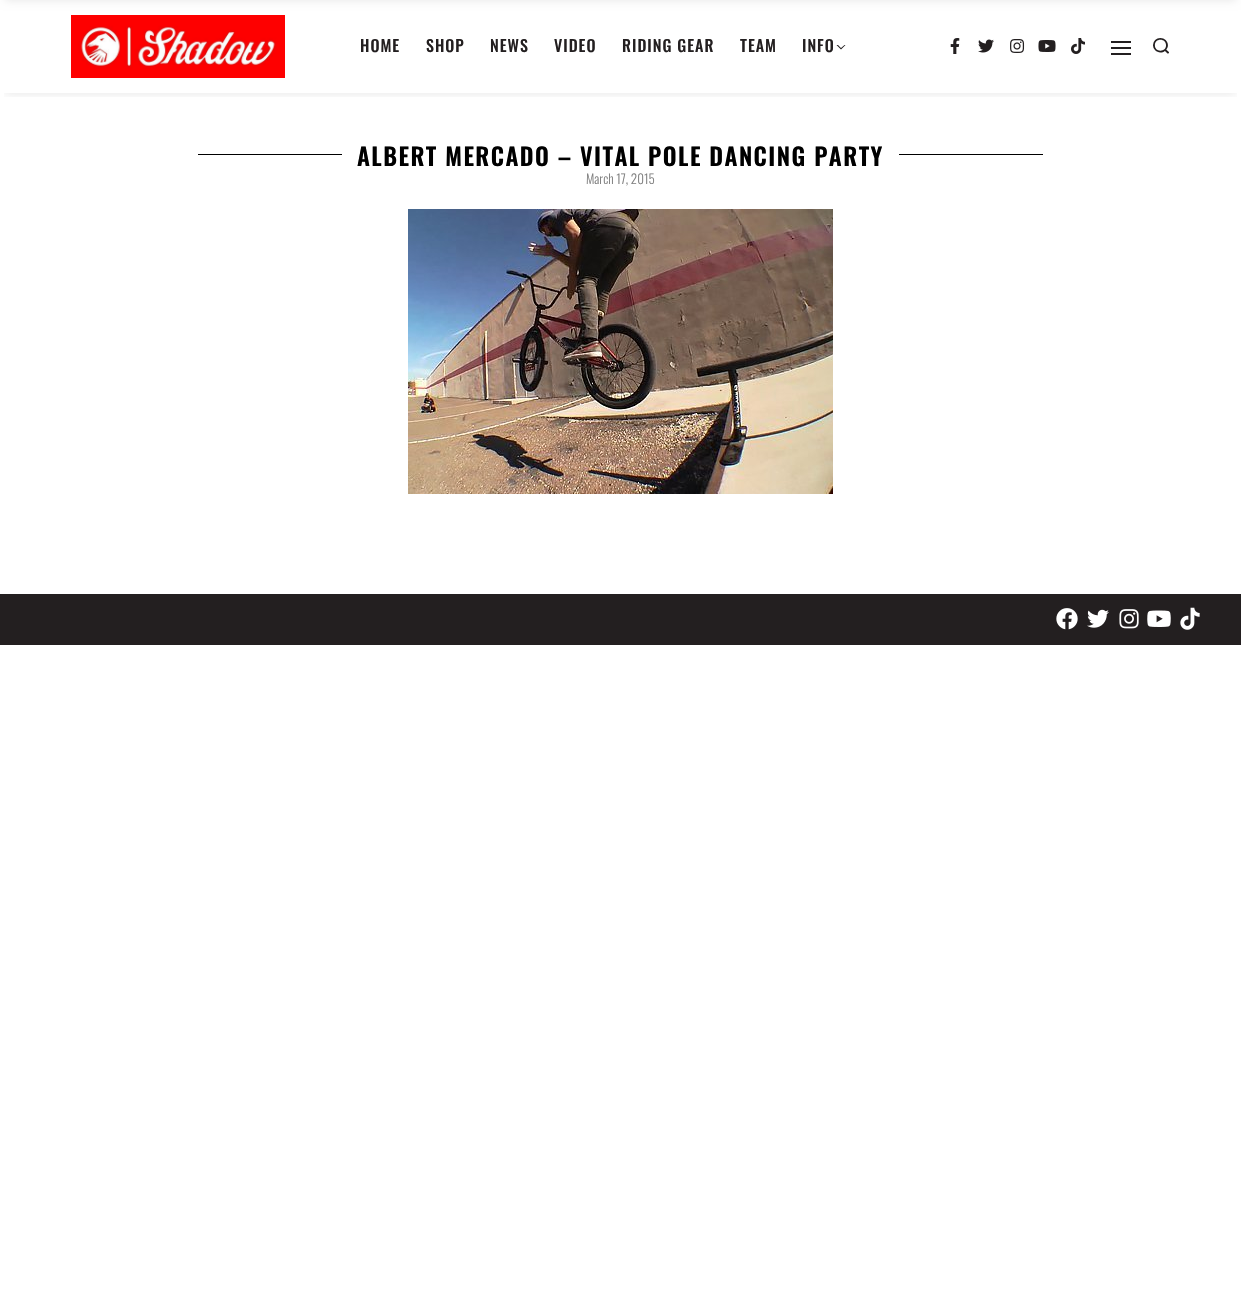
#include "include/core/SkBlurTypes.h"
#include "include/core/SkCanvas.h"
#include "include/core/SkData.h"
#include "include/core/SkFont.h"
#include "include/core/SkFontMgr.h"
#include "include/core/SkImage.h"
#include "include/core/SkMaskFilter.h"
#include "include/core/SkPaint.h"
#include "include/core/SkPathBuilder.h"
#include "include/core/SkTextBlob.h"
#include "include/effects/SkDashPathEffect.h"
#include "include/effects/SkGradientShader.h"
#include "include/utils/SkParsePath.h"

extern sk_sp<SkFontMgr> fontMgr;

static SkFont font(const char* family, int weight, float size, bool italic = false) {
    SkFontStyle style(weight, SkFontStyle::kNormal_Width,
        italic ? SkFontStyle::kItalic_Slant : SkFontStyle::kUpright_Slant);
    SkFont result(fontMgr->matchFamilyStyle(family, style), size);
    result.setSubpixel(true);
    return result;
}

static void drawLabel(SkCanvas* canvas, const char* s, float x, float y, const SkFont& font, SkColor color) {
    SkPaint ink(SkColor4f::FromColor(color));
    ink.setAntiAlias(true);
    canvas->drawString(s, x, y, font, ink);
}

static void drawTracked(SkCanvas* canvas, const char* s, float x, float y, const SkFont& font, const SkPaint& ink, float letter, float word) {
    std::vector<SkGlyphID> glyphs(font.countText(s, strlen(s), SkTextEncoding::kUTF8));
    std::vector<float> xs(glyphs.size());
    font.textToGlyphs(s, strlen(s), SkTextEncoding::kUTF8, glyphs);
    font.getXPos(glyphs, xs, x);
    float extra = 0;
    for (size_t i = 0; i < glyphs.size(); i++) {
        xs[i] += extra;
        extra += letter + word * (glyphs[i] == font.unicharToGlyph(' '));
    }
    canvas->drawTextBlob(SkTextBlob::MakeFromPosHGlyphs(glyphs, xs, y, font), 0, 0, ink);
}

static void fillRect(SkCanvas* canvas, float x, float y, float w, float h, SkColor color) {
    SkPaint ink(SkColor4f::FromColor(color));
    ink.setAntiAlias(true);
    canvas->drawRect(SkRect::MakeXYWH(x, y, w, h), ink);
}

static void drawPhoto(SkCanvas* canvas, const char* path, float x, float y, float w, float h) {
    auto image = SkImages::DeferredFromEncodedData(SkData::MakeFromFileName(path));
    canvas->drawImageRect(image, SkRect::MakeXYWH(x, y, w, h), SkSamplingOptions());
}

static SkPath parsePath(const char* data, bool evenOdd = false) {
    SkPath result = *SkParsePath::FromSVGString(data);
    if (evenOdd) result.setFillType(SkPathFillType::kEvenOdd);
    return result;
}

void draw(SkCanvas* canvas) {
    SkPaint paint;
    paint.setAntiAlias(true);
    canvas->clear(0xFFFFFFFF);
    canvas->save();
    canvas->clipRect(SkRect::MakeXYWH(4, 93, 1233, 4));
    paint.setColor(0x1A000000);
    paint.setMaskFilter(SkMaskFilter::MakeBlur(kNormal_SkBlurStyle, 5));
    canvas->drawRect(SkRect::MakeXYWH(5, 10, 1231, 83), paint);
    paint.setMaskFilter(nullptr);
    canvas->restore();
    drawPhoto(canvas, "assets/img1.png", 71, 15, 214, 63);
    paint.setMaskFilter(SkMaskFilter::MakeBlur(kNormal_SkBlurStyle, 5));
    canvas->drawRect(SkRect::MakeXYWH(5, -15, 1231, 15), paint);
    paint.setMaskFilter(nullptr);
    SkFont font1 = font("Oswald", 500, 16);
    paint.setColor(0xFF231F20);
    drawTracked(canvas, "HOME", 360, 52, font1, paint, 1, 0);
    drawTracked(canvas, "SHOP", 426, 52, font1, paint, 1, 0);
    drawTracked(canvas, "NEWS", 490, 52, font1, paint, 1, 0);
    drawTracked(canvas, "VIDEO", 554, 52, font1, paint, 1, 0);
    drawTracked(canvas, "RIDING GEAR", 622, 52, font1, paint, 1, 0);
    drawTracked(canvas, "TEAM", 740, 52, font1, paint, 1, 0);
    drawTracked(canvas, "INFO", 802, 52, font1, paint, 1, 0);
    canvas->drawPath(parsePath("M845.5 45L841 49.5V48L844.5 45ZM841 49.5L836.5 45H838L841 48Z"), paint);
    drawPhoto(canvas, "assets/img2.png", 950, 38, 10, 16);
    drawPhoto(canvas, "assets/img3.png", 978, 39, 16, 14);
    drawPhoto(canvas, "assets/img4.png", 1010, 39, 15, 14);
    drawPhoto(canvas, "assets/img5.png", 1038, 40, 18, 12);
    drawPhoto(canvas, "assets/img6.png", 1071, 38, 14, 16);
    fillRect(canvas, 1111, 41, 20, 2, 0xFF231F20);
    fillRect(canvas, 1111, 47, 20, 2, 0xFF231F20);
    fillRect(canvas, 1111, 53, 20, 2, 0xFF231F20);
    drawPhoto(canvas, "assets/img7.png", 1153, 38, 16, 16);
    fillRect(canvas, 198, 154, 144, 1, 0xFF000000);
    SkFont font2 = font("Oswald", 600, 24);
    paint.setColor(0xFF000000);
    drawTracked(canvas, "ALBERT MERCADO – VITAL POLE DANCING PARTY", 357, 166, font2, paint, 1.45f, 0);
    fillRect(canvas, 899, 154, 144, 1, 0xFF000000);
    SkFont font3 = font("Oswald", 300, 13);
    drawLabel(canvas, "March 17, 2015", 586, 184, font3, 0xFF808080);
    drawPhoto(canvas, "assets/img8.png", 408, 209, 425, 285);
    fillRect(canvas, 0, 594, 1241, 51, 0xFF231F20);
    drawPhoto(canvas, "assets/img9.png", 1056, 608, 22, 22);
    drawPhoto(canvas, "assets/img10.png", 1087, 609, 22, 19);
    drawPhoto(canvas, "assets/img11.png", 1119, 609, 20, 20);
    drawPhoto(canvas, "assets/img12.png", 1147, 610, 24, 17);
    drawPhoto(canvas, "assets/img13.png", 1180, 607, 20, 23);
}
